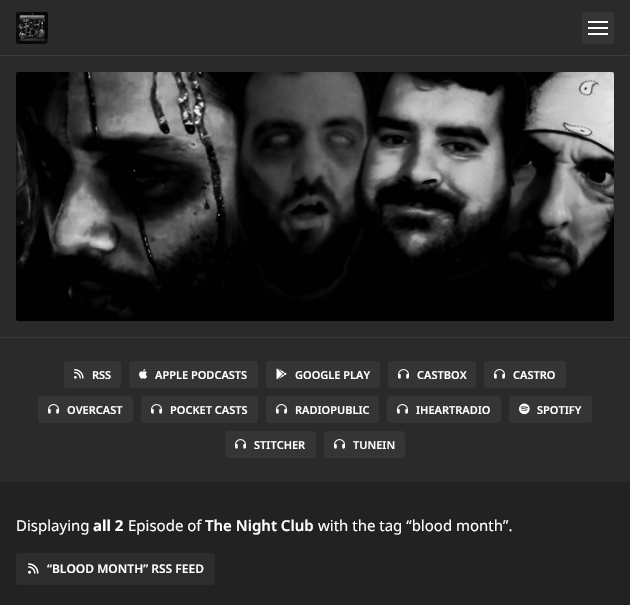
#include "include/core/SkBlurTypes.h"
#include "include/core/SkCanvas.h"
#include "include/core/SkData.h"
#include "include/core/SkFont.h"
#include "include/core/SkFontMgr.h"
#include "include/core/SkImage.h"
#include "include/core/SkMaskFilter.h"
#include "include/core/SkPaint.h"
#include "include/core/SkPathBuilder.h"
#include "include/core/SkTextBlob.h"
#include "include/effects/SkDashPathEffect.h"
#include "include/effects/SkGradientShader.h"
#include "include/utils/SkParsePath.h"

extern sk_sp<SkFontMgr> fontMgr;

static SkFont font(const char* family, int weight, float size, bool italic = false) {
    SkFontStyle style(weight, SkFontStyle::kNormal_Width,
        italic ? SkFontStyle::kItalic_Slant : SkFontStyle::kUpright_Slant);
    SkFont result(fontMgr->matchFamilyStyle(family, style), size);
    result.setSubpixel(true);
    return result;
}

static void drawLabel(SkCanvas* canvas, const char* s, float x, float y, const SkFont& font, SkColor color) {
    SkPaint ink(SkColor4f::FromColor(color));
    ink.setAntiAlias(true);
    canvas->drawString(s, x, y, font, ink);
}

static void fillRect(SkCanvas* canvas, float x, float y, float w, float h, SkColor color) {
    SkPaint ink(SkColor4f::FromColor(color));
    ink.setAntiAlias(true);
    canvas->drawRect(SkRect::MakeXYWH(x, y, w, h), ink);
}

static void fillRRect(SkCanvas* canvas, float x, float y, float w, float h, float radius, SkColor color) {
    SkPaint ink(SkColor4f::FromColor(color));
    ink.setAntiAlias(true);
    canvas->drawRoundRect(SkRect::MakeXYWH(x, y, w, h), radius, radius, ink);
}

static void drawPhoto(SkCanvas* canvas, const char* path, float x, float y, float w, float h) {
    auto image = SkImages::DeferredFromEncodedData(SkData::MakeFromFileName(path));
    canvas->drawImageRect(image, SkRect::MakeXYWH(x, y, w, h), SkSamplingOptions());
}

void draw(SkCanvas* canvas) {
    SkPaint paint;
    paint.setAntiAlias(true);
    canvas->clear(0xFF222222);
    fillRect(canvas, 0, 0, 630, 55, 0xFF2A2A2A);
    fillRect(canvas, 0, 55, 630, 1, 0xFF3B3B3B);
    drawPhoto(canvas, "assets/img1.png", 16, 12, 32, 32);
    fillRRect(canvas, 582, 12, 32, 32, 2, 0xFF353535);
    fillRect(canvas, 588, 21, 20, 2, 0xFFFFFFFF);
    fillRect(canvas, 588, 27, 20, 2, 0xFFFFFFFF);
    fillRect(canvas, 588, 33, 20, 2, 0xFFFFFFFF);
    fillRect(canvas, 0, 56, 630, 281, 0xFF2A2A2A);
    drawPhoto(canvas, "assets/img2.png", 16, 72, 598, 249);
    fillRect(canvas, 0, 338, 630, 144, 0xFF2A2A2A);
    fillRect(canvas, 0, 337, 630, 1, 0xFF3B3B3B);
    fillRRect(canvas, 64, 361, 57, 27, 4, 0xFF353535);
    drawPhoto(canvas, "assets/img3.png", 74, 369, 10, 10);
    SkFont font1 = font("Noto Sans", 600, 11);
    drawLabel(canvas, "RSS", 92, 379, font1, 0xFFFFFFFF);
    fillRRect(canvas, 129, 361, 129, 27, 4, 0xFF353535);
    drawPhoto(canvas, "assets/img4.png", 139, 369, 9, 10);
    drawLabel(canvas, "APPLE PODCASTS", 155, 379, font1, 0xFFFFFFFF);
    fillRRect(canvas, 266, 361, 114, 27, 4, 0xFF353535);
    drawPhoto(canvas, "assets/img5.png", 276, 368, 11, 12);
    drawLabel(canvas, "GOOGLE PLAY", 295, 379, font1, 0xFFFFFFFF);
    fillRRect(canvas, 388, 361, 88, 27, 4, 0xFF353535);
    drawPhoto(canvas, "assets/img6.png", 398, 369, 11, 10);
    drawLabel(canvas, "CASTBOX", 417, 379, font1, 0xFFFFFFFF);
    fillRRect(canvas, 484, 361, 82, 27, 4, 0xFF353535);
    drawPhoto(canvas, "assets/img6.png", 494, 369, 11, 10);
    drawLabel(canvas, "CASTRO", 513, 379, font1, 0xFFFFFFFF);
    fillRRect(canvas, 38, 396, 95, 27, 4, 0xFF353535);
    drawPhoto(canvas, "assets/img6.png", 48, 404, 11, 10);
    drawLabel(canvas, "OVERCAST", 67, 414, font1, 0xFFFFFFFF);
    fillRRect(canvas, 141, 396, 117, 27, 4, 0xFF353535);
    drawPhoto(canvas, "assets/img6.png", 151, 404, 11, 10);
    drawLabel(canvas, "POCKET CASTS", 170, 414, font1, 0xFFFFFFFF);
    fillRRect(canvas, 266, 396, 113, 27, 4, 0xFF353535);
    drawPhoto(canvas, "assets/img6.png", 276, 404, 11, 10);
    drawLabel(canvas, "RADIOPUBLIC", 295, 414, font1, 0xFFFFFFFF);
    fillRRect(canvas, 387, 396, 114, 27, 4, 0xFF353535);
    drawPhoto(canvas, "assets/img6.png", 397, 404, 11, 10);
    drawLabel(canvas, "IHEARTRADIO", 416, 414, font1, 0xFFFFFFFF);
    fillRRect(canvas, 509, 396, 83, 27, 4, 0xFF353535);
    drawPhoto(canvas, "assets/img7.png", 519, 403, 11, 12);
    drawLabel(canvas, "SPOTIFY", 537, 414, font1, 0xFFFFFFFF);
    fillRRect(canvas, 225, 431, 91, 27, 4, 0xFF353535);
    drawPhoto(canvas, "assets/img6.png", 235, 439, 11, 10);
    drawLabel(canvas, "STITCHER", 254, 449, font1, 0xFFFFFFFF);
    fillRRect(canvas, 324, 431, 81, 27, 4, 0xFF353535);
    drawPhoto(canvas, "assets/img6.png", 334, 439, 11, 10);
    drawLabel(canvas, "TUNEIN", 353, 449, font1, 0xFFFFFFFF);
    SkFont font2 = font("Noto Sans", 400, 15);
    drawLabel(canvas, "Displaying", 16, 531, font2, 0xFFFFFFFF);
    SkFont font3 = font("Noto Sans", 700, 15);
    drawLabel(canvas, "all 2", 93, 531, font3, 0xFFFFFFFF);
    drawLabel(canvas, "Episode of", 128, 531, font2, 0xFFFFFFFF);
    SkFont font4 = font("Noto Sans", 600, 15);
    drawLabel(canvas, "The Night Club", 205, 531, font4, 0xFFFFFFFF);
    drawLabel(canvas, "with the tag “blood month”.", 318, 531, font2, 0xFFFFFFFF);
    fillRRect(canvas, 16, 553, 199, 32, 4, 0xFF2D2D2D);
    drawPhoto(canvas, "assets/img8.png", 28, 563, 11, 11);
    SkFont font5 = font("Noto Sans", 600, 12);
    drawLabel(canvas, "“BLOOD MONTH” RSS FEED", 47, 573, font5, 0xFFFFFFFF);
}
